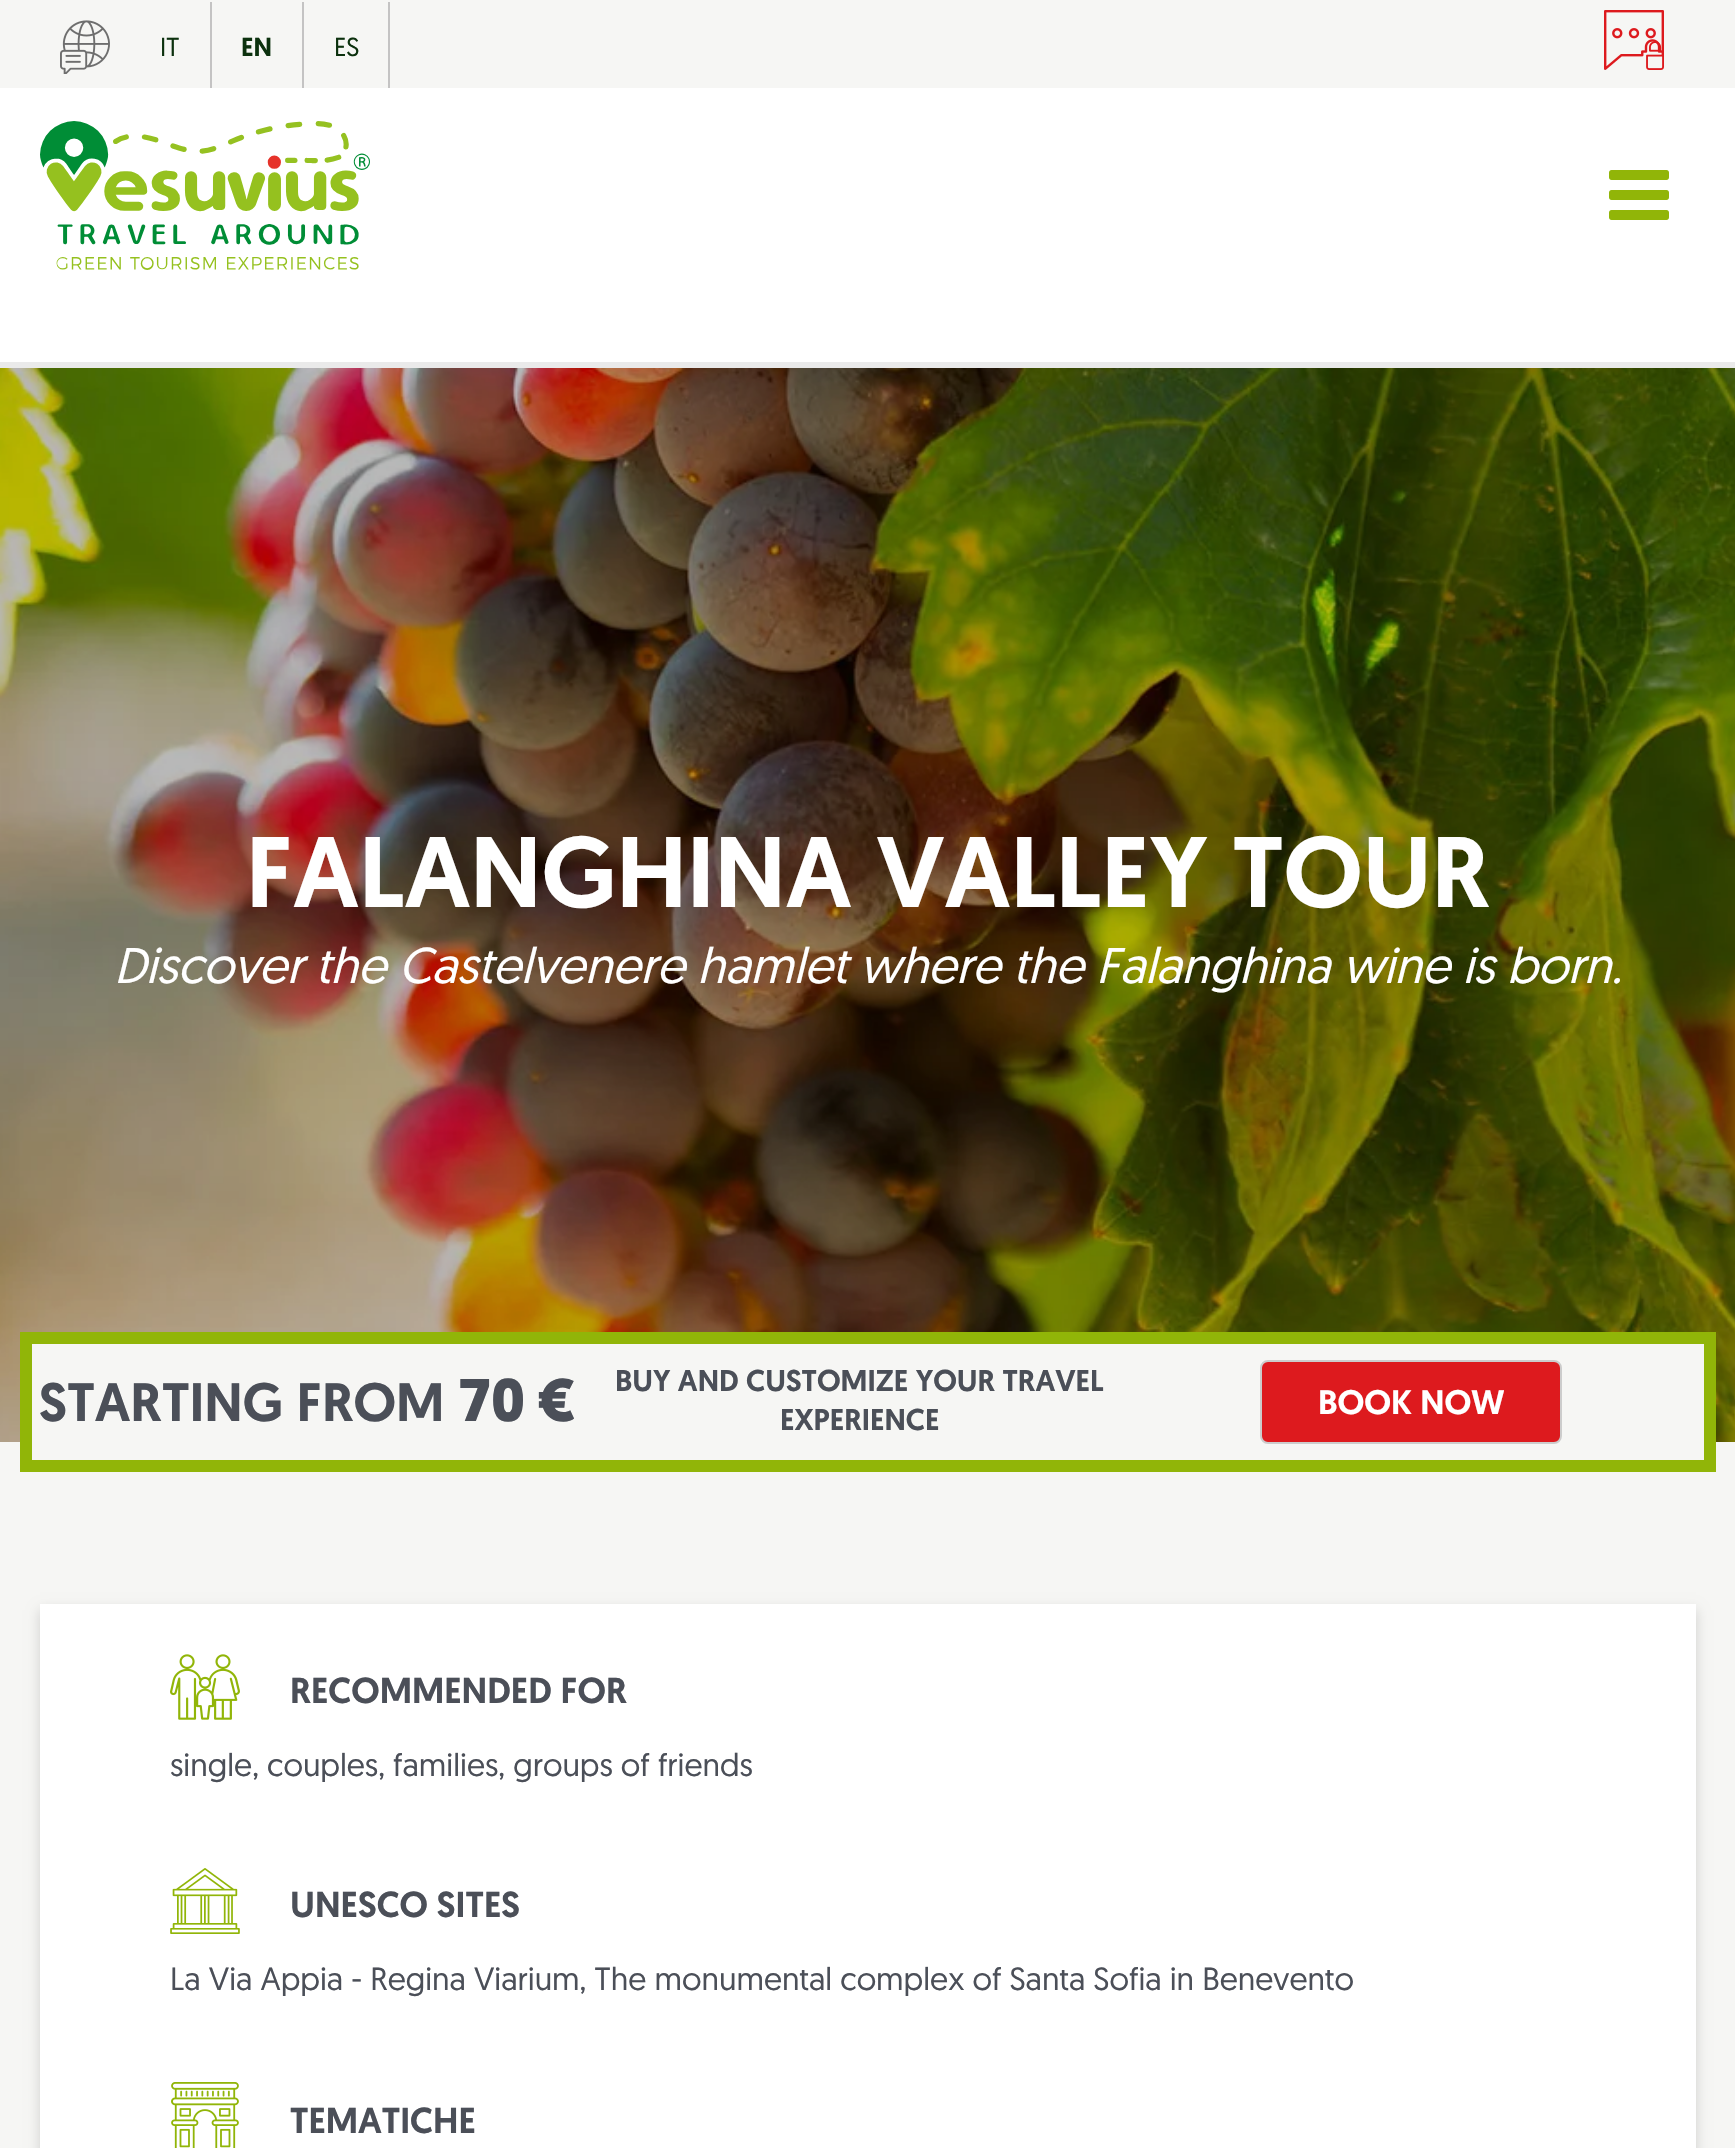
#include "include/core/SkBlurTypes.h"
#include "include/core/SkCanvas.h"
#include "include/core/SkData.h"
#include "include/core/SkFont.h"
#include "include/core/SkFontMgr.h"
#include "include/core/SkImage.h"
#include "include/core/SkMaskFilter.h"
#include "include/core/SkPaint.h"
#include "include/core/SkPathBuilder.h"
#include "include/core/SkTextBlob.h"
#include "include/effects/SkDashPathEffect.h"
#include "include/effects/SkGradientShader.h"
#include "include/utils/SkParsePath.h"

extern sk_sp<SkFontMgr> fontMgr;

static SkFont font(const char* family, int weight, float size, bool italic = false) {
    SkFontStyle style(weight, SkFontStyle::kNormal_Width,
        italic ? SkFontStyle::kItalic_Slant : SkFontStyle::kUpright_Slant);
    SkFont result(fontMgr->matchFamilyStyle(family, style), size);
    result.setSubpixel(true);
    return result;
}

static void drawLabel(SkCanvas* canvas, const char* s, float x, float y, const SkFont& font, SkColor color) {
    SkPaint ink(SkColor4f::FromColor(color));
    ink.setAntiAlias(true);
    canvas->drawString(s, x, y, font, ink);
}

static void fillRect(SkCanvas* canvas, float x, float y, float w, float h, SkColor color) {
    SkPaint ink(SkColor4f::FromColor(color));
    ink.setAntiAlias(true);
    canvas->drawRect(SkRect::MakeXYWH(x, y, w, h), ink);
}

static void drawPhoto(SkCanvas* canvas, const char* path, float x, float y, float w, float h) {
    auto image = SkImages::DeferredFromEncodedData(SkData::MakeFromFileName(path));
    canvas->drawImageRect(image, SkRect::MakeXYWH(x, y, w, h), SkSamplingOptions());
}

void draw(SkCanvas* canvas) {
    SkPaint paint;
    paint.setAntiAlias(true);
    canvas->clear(0xFFF6F6F4);
    drawPhoto(canvas, "assets/img1.png", 60, 20, 50, 54);
    fillRect(canvas, 210, 2, 2, 90, 0xFFC4C3C3);
    SkFont font1 = font("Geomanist", 400, 26);
    drawLabel(canvas, "IT", 160, 56, font1, 0xFF0C310E);
    fillRect(canvas, 302, 2, 2, 90, 0xFFC4C3C3);
    SkFont font2 = font("Geomanist", 500, 26);
    drawLabel(canvas, "EN", 241, 56, font2, 0xFF0C310E);
    fillRect(canvas, 388, 2, 2, 90, 0xFFC4C3C3);
    drawLabel(canvas, "ES", 334, 56, font1, 0xFF0C310E);
    drawPhoto(canvas, "assets/img2.png", 1604, 10, 60, 60);
    fillRect(canvas, 0, 88, 1735, 274, 0xFFFFFFFF);
    fillRect(canvas, 0, 362, 1735, 6, 0xFFEAEAEA);
    drawPhoto(canvas, "assets/img3.png", 40, 121, 330, 149);
    drawPhoto(canvas, "assets/img4.png", 1609, 170, 60, 50);
    drawPhoto(canvas, "assets/img5.png", 0, 368, 1735, 1074);
    SkFont font3 = font("Geomanist", 500, 100);
    drawLabel(canvas, "FALANGHINA VALLEY TOUR", 246, 907, font3, 0xFFFFFFFF);
    SkFont font4 = font("Geomanist", 400, 50, true);
    drawLabel(canvas, "Discover the Castelvenere hamlet where the Falanghina wine is born.", 114, 983, font4, 0xFFFFFFFF);
    fillRect(canvas, 32, 1344, 1672, 98, 0xFFF6F6F4);
    paint.setStroke(true);
    paint.setStrokeWidth(12);
    paint.setColor(0xFF91B508);
    canvas->drawRect(SkRect::MakeXYWH(26, 1338, 1684, 128), paint);
    SkFont font5 = font("Geomanist", 500, 54);
    drawLabel(canvas, "STARTING FROM", 39, 1421, font5, 0xFF4B4F58);
    SkFont font6 = font("Geomanist", 700, 60);
    drawLabel(canvas, "70 €", 459, 1421, font6, 0xFF4B4F58);
    SkFont font7 = font("Geomanist", 500, 30);
    drawLabel(canvas, "BUY AND CUSTOMIZE YOUR TRAVEL", 615, 1391, font7, 0xFF4B4F58);
    drawLabel(canvas, "EXPERIENCE", 780, 1430, font7, 0xFF4B4F58);
    paint.setStroke(false);
    paint.setColor(0xFFDD1A1E);
    canvas->drawRoundRect(SkRect::MakeXYWH(1261, 1361, 300, 82), 7, 7, paint);
    paint.setStroke(true);
    paint.setStrokeWidth(2);
    paint.setColor(0xFFCCCCCC);
    canvas->drawRoundRect(SkRect::MakeXYWH(1261, 1361, 300, 82), 7, 7, paint);
    SkFont font8 = font("Geomanist", 500, 34);
    drawLabel(canvas, "BOOK NOW", 1318, 1414, font8, 0xFFFFFFFF);
    paint.setStroke(false);
    paint.setColor(0x29000000);
    paint.setMaskFilter(SkMaskFilter::MakeBlur(kNormal_SkBlurStyle, 6));
    canvas->drawRect(SkRect::MakeXYWH(40, 1610, 1656, 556), paint);
    paint.setMaskFilter(nullptr);
    fillRect(canvas, 40, 1604, 1656, 544, 0xFFFFFFFF);
    drawPhoto(canvas, "assets/img6.png", 170, 1654, 70, 66);
    SkFont font9 = font("Geomanist", 500, 36);
    drawLabel(canvas, "RECOMMENDED FOR", 290, 1703, font9, 0xFF4B4F58);
    SkFont font10 = font("Geomanist", 400, 32);
    drawLabel(canvas, "single, couples, families, groups of friends", 170, 1776, font10, 0xFF4B4F58);
    drawPhoto(canvas, "assets/img7.png", 170, 1868, 70, 66);
    drawLabel(canvas, "UNESCO SITES", 290, 1917, font9, 0xFF4B4F58);
    drawLabel(canvas, "La Via Appia - Regina Viarium, The monumental complex of Santa Sofia in Benevento", 170, 1990, font10, 0xFF4B4F58);
    drawPhoto(canvas, "assets/img8.png", 171, 2082, 68, 66);
    drawLabel(canvas, "TEMATICHE", 290, 2133, font9, 0xFF4B4F58);
}
